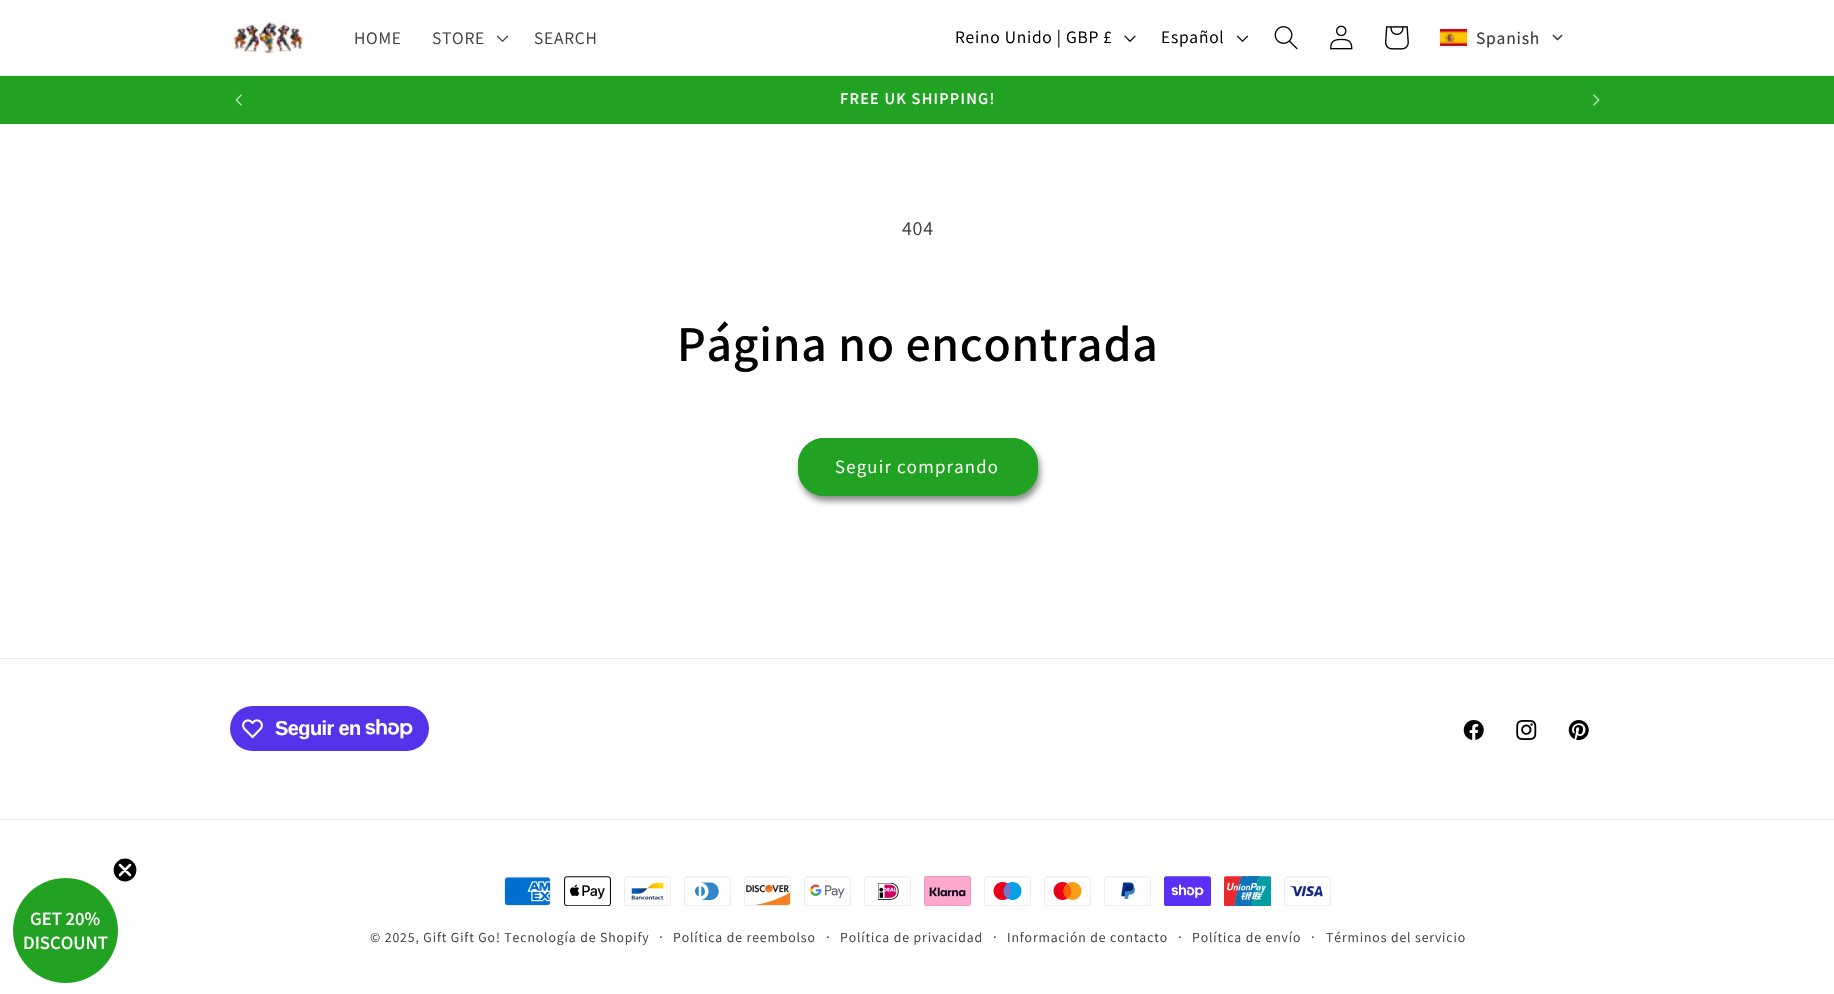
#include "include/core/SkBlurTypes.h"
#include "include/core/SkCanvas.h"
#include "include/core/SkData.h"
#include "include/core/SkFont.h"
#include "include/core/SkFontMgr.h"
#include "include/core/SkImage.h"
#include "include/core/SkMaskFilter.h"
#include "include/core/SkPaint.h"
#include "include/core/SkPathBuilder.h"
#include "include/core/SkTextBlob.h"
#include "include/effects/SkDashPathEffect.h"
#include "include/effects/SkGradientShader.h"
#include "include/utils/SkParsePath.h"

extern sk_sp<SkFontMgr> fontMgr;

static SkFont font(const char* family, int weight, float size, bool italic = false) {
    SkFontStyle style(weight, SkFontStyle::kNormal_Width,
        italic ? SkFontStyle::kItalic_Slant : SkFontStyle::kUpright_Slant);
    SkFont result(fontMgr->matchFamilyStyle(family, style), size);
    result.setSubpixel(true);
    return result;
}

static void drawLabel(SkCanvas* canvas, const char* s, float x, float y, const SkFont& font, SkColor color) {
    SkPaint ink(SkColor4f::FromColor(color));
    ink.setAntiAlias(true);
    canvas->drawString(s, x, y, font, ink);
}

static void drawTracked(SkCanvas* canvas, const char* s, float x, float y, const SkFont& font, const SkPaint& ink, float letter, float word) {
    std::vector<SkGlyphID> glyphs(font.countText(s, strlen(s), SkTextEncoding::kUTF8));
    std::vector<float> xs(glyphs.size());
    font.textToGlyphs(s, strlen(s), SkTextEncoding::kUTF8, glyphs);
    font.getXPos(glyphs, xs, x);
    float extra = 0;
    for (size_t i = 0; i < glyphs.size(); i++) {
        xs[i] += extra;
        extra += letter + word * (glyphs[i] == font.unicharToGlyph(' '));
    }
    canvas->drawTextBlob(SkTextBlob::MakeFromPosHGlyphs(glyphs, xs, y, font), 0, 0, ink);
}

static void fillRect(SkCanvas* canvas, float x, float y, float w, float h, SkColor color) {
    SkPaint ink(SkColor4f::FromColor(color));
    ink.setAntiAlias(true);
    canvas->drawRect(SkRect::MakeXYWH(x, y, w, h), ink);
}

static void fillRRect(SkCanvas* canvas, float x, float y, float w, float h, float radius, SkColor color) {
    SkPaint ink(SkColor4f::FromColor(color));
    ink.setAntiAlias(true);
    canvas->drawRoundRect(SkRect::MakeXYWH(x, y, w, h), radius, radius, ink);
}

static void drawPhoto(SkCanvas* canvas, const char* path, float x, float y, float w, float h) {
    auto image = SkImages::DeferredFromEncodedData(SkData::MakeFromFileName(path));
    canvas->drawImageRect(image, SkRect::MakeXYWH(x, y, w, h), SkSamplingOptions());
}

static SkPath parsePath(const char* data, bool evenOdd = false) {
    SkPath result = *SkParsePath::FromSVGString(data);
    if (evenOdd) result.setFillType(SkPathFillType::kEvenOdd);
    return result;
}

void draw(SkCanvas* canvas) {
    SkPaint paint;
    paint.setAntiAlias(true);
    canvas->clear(0xFFFFFFFF);
    fillRect(canvas, 0, 75, 1834, 1, 0xFFEBEBEB);
    drawPhoto(canvas, "assets/img1.png", 230, 21, 75, 34);
    SkFont font1 = font("Assistant", 400, 17.5f);
    paint.setColor(0xFF404040);
    drawTracked(canvas, "HOME", 354, 44, font1, paint, 0.75f, 0);
    drawTracked(canvas, "STORE", 432, 44, font1, paint, 0.75f, 0);
    drawPhoto(canvas, "assets/img2.png", 496, 35, 13, 7);
    drawTracked(canvas, "SEARCH", 534, 44, font1, paint, 0.75f, 0);
    paint.setColor(0xFF000000);
    drawTracked(canvas, "Reino Unido | GBP £", 955, 43, font1, paint, 0.75f, 0);
    drawPhoto(canvas, "assets/img3.png", 1124, 35, 12, 7);
    drawTracked(canvas, "Español", 1161, 43, font1, paint, 0.75f, 0);
    drawPhoto(canvas, "assets/img4.png", 1236, 35, 13, 7);
    drawPhoto(canvas, "assets/img5.png", 1274, 26, 24, 24);
    drawPhoto(canvas, "assets/img6.png", 1330, 25, 23, 25);
    drawPhoto(canvas, "assets/img7.png", 1385, 26, 24, 24);
    paint.setStroke(true);
    paint.setStrokeWidth(1);
    paint.setColor(0xFFF0F1F2);
    canvas->drawRoundRect(SkRect::MakeXYWH(1439.5f, 28.5f, 29, 19), 2, 2, paint);
    drawPhoto(canvas, "assets/img8.png", 1440, 29, 28, 17);
    SkFont font2 = font("Assistant", 500, 17.5f);
    paint.setStroke(false);
    paint.setColor(0xFF404040);
    drawTracked(canvas, "Spanish", 1476, 44, font2, paint, 0.75f, 0);
    drawPhoto(canvas, "assets/img9.png", 1552, 34, 11, 7);
    fillRect(canvas, 0, 76, 1834, 48, 0xFF22A222);
    drawPhoto(canvas, "assets/img10.png", 235, 94, 7, 12);
    SkFont font3 = font("Assistant", 600, 16.25f);
    paint.setColor(0xFFFFFFFF);
    drawTracked(canvas, "FREE UK SHIPPING!", 840, 104, font3, paint, 1.25f, 0);
    drawPhoto(canvas, "assets/img11.png", 1593, 94, 7, 12);
    SkFont font4 = font("Assistant", 400, 20);
    paint.setColor(0xFF404040);
    drawTracked(canvas, "404", 902, 235, font4, paint, 0.75f, 0);
    SkFont font5 = font("Assistant", 600, 50);
    paint.setColor(0xFF000000);
    drawTracked(canvas, "Página no encontrada", 677, 361, font5, paint, 0.75f, 0);
    paint.setColor(0x73000000);
    paint.setMaskFilter(SkMaskFilter::MakeBlur(kNormal_SkBlurStyle, 3));
    canvas->drawRoundRect(SkRect::MakeXYWH(800, 443, 240, 58), 26, 26, paint);
    paint.setMaskFilter(nullptr);
    fillRRect(canvas, 798, 438, 240, 58, 26, 0xFF22A222);
    paint.setStroke(true);
    paint.setColor(0xFF22A222);
    canvas->drawRoundRect(SkRect::MakeXYWH(798.5f, 438.5f, 239, 57), 25.5f, 25.5f, paint);
    SkFont font6 = font("Assistant", 400, 18.75f);
    paint.setStroke(false);
    paint.setColor(0xFFFFFFFF);
    drawTracked(canvas, "Seguir comprando", 835, 473, font6, paint, 1.25f, 0);
    paint.setColor(0xFF22A222);
    canvas->drawCircle(65.5f, 930.5f, 52.5f, paint);
    paint.setColor(0xFF000000);
    canvas->drawCircle(125, 870, 12, paint);
    paint.setStroke(true);
    paint.setStrokeWidth(1.2f);
    paint.setColor(0xFFFFFFFF);
    canvas->drawCircle(125, 870, 12, paint);
    paint.setStrokeWidth(2.5f);
    paint.setStrokeCap(SkPaint::kRound_Cap);
    paint.setStrokeJoin(SkPaint::kRound_Join);
    canvas->drawPath(parsePath("M120 865L130 875M120 875L130 865Z"), paint);
    SkFont font7 = font("Assistant", 600, 18.75f);
    drawLabel(canvas, "GET 20%", 30, 925, font7, 0xFFFFFFFF);
    drawLabel(canvas, "DISCOUNT", 23, 949, font7, 0xFFFFFFFF);
    fillRect(canvas, 0, 658, 1834, 1, 0xFFEBEBEB);
    fillRRect(canvas, 230, 706, 199, 45, 22.5f, 0xFF5433EB);
    drawPhoto(canvas, "assets/img12.png", 242, 719, 21, 20);
    SkFont font8 = font("Liberation Sans", 700, 20);
    paint.setStroke(false);
    drawTracked(canvas, "Seguir en", 275, 735, font8, paint, -0.6f, 0);
    drawPhoto(canvas, "assets/img13.png", 365, 719, 48, 20);
    drawPhoto(canvas, "assets/img14.png", 1463, 720, 21, 20);
    drawPhoto(canvas, "assets/img15.png", 1516, 720, 21, 20);
    drawPhoto(canvas, "assets/img16.png", 1568, 720, 21, 21);
    fillRect(canvas, 0, 819, 1834, 1, 0xFFEBEBEB);
    drawPhoto(canvas, "assets/img17.png", 504, 876, 47, 30);
    drawPhoto(canvas, "assets/img18.png", 564, 876, 47, 30);
    drawPhoto(canvas, "assets/img19.png", 624, 876, 47, 30);
    drawPhoto(canvas, "assets/img20.png", 684, 876, 47, 30);
    drawPhoto(canvas, "assets/img21.png", 744, 876, 47, 30);
    drawPhoto(canvas, "assets/img22.png", 804, 876, 47, 30);
    drawPhoto(canvas, "assets/img23.png", 864, 876, 47, 30);
    drawPhoto(canvas, "assets/img24.png", 924, 876, 47, 30);
    drawPhoto(canvas, "assets/img25.png", 984, 876, 47, 30);
    drawPhoto(canvas, "assets/img26.png", 1044, 876, 47, 30);
    drawPhoto(canvas, "assets/img27.png", 1104, 876, 47, 30);
    drawPhoto(canvas, "assets/img28.png", 1164, 876, 47, 30);
    drawPhoto(canvas, "assets/img29.png", 1224, 876, 47, 30);
    drawPhoto(canvas, "assets/img30.png", 1284, 876, 47, 30);
    SkFont font9 = font("Assistant", 400, 13.75f);
    paint.setColor(0xFF404040);
    drawTracked(canvas, "© 2025, Gift Gift Go! Tecnología de Shopify", 370, 942, font9, paint, 0.9f, 0);
    SkFont font10 = font("Assistant", 400, 15);
    drawTracked(canvas, "·", 659, 942, font10, paint, 0.9f, 0);
    drawTracked(canvas, "Política de reembolso", 673, 942, font9, paint, 0.9f, 0);
    drawTracked(canvas, "·", 826, 942, font10, paint, 0.9f, 0);
    drawTracked(canvas, "Política de privacidad", 840, 942, font9, paint, 0.9f, 0);
    drawTracked(canvas, "·", 993, 942, font10, paint, 0.9f, 0);
    drawTracked(canvas, "Información de contacto", 1007, 942, font9, paint, 0.9f, 0);
    drawTracked(canvas, "·", 1178, 942, font10, paint, 0.9f, 0);
    drawTracked(canvas, "Política de envío", 1192, 942, font9, paint, 0.9f, 0);
    drawTracked(canvas, "·", 1311, 942, font10, paint, 0.9f, 0);
    drawTracked(canvas, "Términos del servicio", 1326, 942, font9, paint, 0.9f, 0);
}
